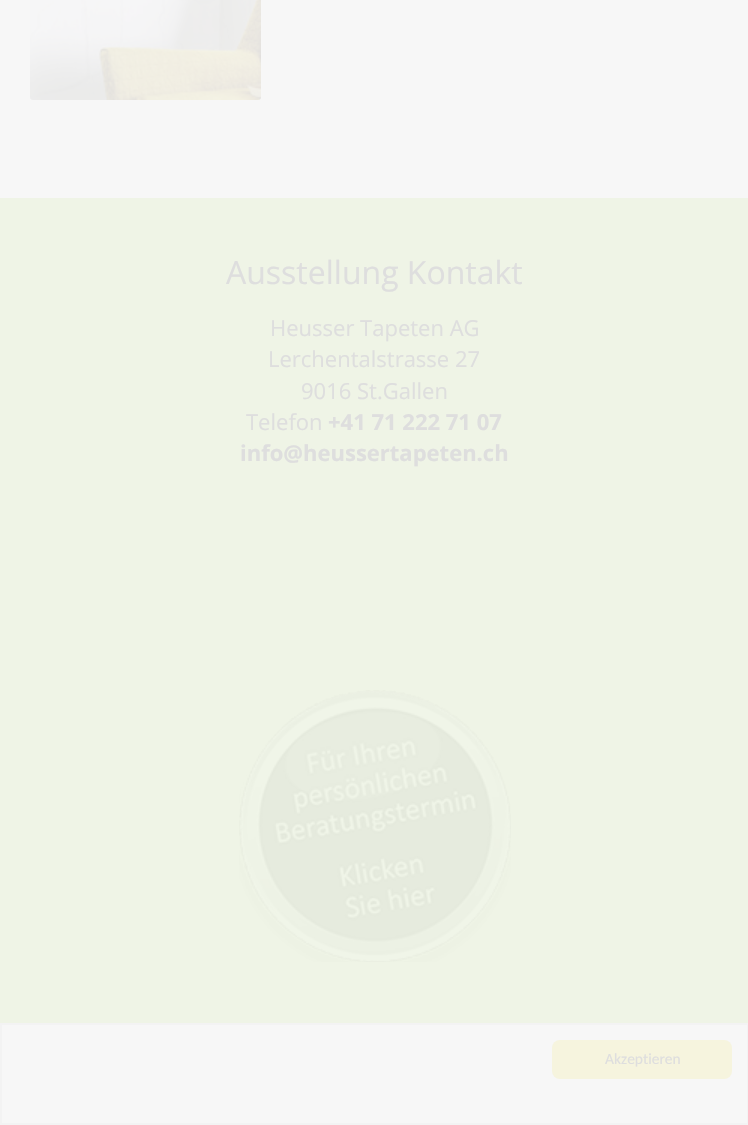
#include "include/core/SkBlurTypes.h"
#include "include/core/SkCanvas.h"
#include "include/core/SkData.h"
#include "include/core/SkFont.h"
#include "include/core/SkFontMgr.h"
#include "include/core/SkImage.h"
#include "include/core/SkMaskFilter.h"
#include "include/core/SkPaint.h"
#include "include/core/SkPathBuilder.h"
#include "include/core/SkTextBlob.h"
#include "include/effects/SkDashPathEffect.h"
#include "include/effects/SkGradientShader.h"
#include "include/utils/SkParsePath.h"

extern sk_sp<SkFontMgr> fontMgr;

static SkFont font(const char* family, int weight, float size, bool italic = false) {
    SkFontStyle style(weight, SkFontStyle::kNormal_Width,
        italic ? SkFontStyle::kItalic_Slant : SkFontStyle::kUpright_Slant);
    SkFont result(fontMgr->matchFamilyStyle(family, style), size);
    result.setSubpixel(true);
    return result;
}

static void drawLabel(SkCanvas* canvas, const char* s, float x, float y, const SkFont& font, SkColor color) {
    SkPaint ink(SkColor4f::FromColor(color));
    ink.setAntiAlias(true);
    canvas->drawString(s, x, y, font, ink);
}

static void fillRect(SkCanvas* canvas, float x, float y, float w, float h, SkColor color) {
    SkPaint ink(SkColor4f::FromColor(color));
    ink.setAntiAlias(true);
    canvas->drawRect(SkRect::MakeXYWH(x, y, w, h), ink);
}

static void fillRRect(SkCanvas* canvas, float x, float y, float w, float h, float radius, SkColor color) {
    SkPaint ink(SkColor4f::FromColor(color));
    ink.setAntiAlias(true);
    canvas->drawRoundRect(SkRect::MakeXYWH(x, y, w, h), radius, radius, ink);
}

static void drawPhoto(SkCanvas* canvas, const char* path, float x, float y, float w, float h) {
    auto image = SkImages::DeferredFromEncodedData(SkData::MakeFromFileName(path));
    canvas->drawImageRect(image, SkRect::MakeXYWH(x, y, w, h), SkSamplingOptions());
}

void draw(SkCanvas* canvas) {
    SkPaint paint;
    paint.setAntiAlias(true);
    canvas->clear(0xFFF7F7F7);
    drawPhoto(canvas, "assets/img1.png", 30, 0, 231, 100);
    fillRect(canvas, 0, 198, 748, 825, 0xFFEFF4E6);
    SkFont font1 = font("Open Sans", 400, 32);
    drawLabel(canvas, "Ausstellung Kontakt", 226, 284, font1, 0xFFDEDEDE);
    SkFont font2 = font("Open Sans", 400, 22);
    drawLabel(canvas, "Heusser Tapeten AG", 270, 336, font2, 0xFFDEDEDE);
    drawLabel(canvas, "Lerchentalstrasse 27", 268, 367, font2, 0xFFDEDEDE);
    drawLabel(canvas, "9016 St.Gallen", 301, 399, font2, 0xFFDEDEDE);
    drawLabel(canvas, "Telefon", 246, 430, font2, 0xFFDEDEDE);
    SkFont font3 = font("Open Sans", 700, 22);
    drawLabel(canvas, "+41 71 222 71 07", 328, 430, font3, 0xFFDEDEDE);
    drawLabel(canvas, "info@heussertapeten.ch", 240, 461, font3, 0xFFDEDEDE);
    drawPhoto(canvas, "assets/img2.png", 239, 690, 272, 272);
    paint.setStroke(true);
    paint.setStrokeWidth(2);
    paint.setColor(0xFFF3F3F3);
    canvas->drawRect(SkRect::MakeXYWH(1, 1024, 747, 100), paint);
    fillRRect(canvas, 552, 1040, 180, 39, 8, 0xFFF6F4DE);
    SkFont font4 = font("Carlito", 400, 15.5f);
    drawLabel(canvas, "Akzeptieren", 605, 1064, font4, 0xFFDEDEDE);
}
